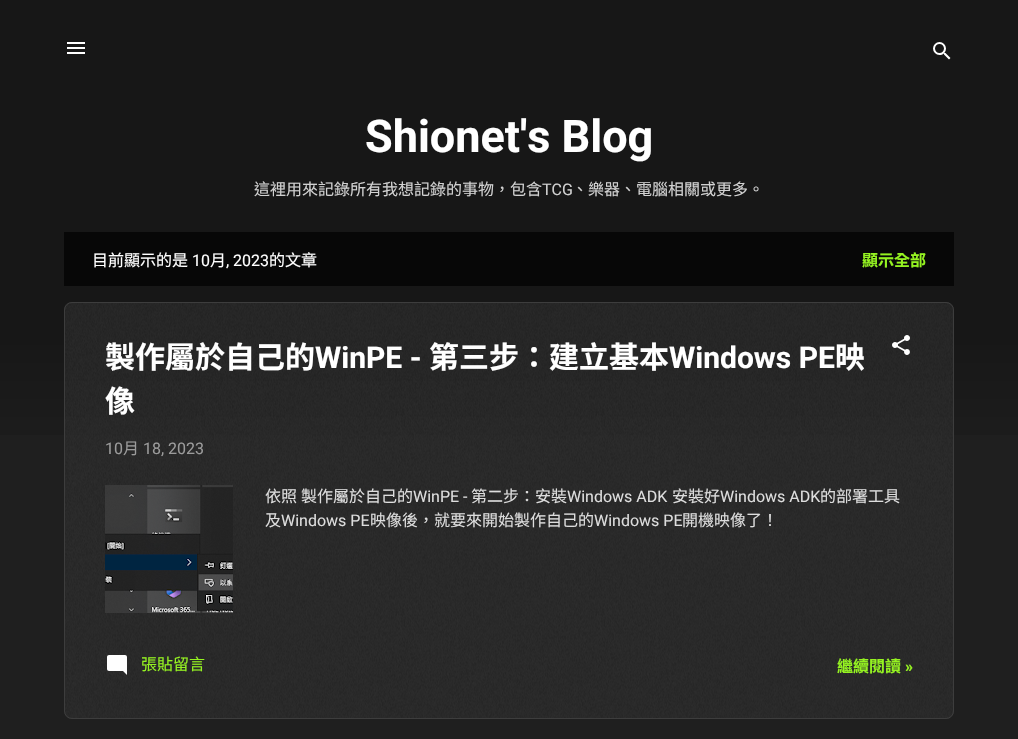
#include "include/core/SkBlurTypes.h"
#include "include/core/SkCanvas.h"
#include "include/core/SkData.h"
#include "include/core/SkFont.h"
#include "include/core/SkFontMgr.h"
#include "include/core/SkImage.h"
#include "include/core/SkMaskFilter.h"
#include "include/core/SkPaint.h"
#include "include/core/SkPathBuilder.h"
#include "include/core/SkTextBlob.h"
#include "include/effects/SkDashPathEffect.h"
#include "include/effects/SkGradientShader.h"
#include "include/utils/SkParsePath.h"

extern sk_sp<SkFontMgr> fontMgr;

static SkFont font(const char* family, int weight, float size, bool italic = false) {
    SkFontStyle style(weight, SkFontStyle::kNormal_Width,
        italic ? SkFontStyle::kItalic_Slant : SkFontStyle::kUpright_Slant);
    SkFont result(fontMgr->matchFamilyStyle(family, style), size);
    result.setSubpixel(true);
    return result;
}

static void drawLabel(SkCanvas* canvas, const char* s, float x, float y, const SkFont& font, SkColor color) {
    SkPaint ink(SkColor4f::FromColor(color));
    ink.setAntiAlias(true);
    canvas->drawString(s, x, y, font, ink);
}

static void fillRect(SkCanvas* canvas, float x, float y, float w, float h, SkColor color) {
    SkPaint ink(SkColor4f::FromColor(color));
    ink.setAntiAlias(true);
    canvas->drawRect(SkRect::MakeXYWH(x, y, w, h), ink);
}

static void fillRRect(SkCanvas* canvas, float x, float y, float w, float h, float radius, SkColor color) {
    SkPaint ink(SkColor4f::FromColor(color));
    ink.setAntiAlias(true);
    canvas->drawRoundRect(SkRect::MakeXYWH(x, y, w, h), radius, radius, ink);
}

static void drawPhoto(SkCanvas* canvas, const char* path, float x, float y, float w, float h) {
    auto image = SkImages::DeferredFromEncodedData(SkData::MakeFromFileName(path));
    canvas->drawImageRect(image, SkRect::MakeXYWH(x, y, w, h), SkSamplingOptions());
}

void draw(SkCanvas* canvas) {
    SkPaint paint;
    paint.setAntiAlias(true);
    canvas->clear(0xFF1F1F1F);
    {
        const SkColor colors[] = {0xFF1F1F1F, 0xFF171717};
        const float stops[] = {0, 0.3f};
        const SkPoint ends[] = {{509, 480}, {509, 0}};
        paint.setShader(SkGradientShader::MakeLinear(ends, colors, stops, 2, SkTileMode::kClamp));
        paint.setAlpha(255);
    }
    canvas->drawRect(SkRect::MakeXYWH(0, 0, 1018, 435), paint);
    drawPhoto(canvas, "assets/img1.png", 67, 42, 18, 12);
    drawPhoto(canvas, "assets/img2.png", 933, 42, 18, 18);
    SkFont font1 = font("Roboto", 700, 45);
    drawLabel(canvas, "Shionet's Blog", 365, 152, font1, 0xFFFFFFFF);
    SkFont font2 = font("Noto Sans CJK TC", 400, 16);
    drawLabel(canvas, "這裡用來記錄所有我想記錄的事物，包含", 254, 195, font2, 0xFFD1D1D1);
    SkFont font3 = font("Roboto", 400, 16);
    drawLabel(canvas, "TCG", 542, 195, font3, 0xFFD1D1D1);
    drawLabel(canvas, "、樂器、電腦相關或更多。", 572, 195, font2, 0xFFD1D1D1);
    fillRect(canvas, 64, 232, 890, 54, 0xFF070707);
    drawLabel(canvas, "目前顯示的是", 92, 266, font2, 0xFFFFFFFF);
    drawLabel(canvas, "10", 192, 266, font3, 0xFFFFFFFF);
    drawLabel(canvas, "月", 210, 266, font2, 0xFFFFFFFF);
    drawLabel(canvas, ", 2023", 226, 266, font3, 0xFFFFFFFF);
    drawLabel(canvas, "的文章", 269, 266, font2, 0xFFFFFFFF);
    SkFont font4 = font("Noto Sans CJK TC", 700, 16);
    drawLabel(canvas, "顯示全部", 862, 266, font4, 0xFF95F321);
    fillRRect(canvas, 64, 302, 890, 417, 8, 0x99292929);
    drawPhoto(canvas, "assets/img3.png", 64, 302, 890, 417);
    paint.setStroke(true);
    paint.setStrokeWidth(1);
    paint.setShader(nullptr);
    paint.setColor(0xFF3D3D3D);
    canvas->drawRoundRect(SkRect::MakeXYWH(64.5f, 302.5f, 889, 416), 7.5f, 7.5f, paint);
    SkFont font5 = font("Noto Sans CJK TC", 700, 30);
    drawLabel(canvas, "製作屬於自己的", 105, 368, font5, 0xFFFFFFFF);
    SkFont font6 = font("Roboto", 700, 30);
    drawLabel(canvas, "WinPE -", 315, 368, font6, 0xFFFFFFFF);
    drawLabel(canvas, "第三步：建立基本", 429, 368, font5, 0xFFFFFFFF);
    drawLabel(canvas, "Windows PE", 669, 368, font6, 0xFFFFFFFF);
    drawLabel(canvas, "映", 835, 368, font5, 0xFFFFFFFF);
    drawLabel(canvas, "像", 105, 412, font5, 0xFFFFFFFF);
    drawPhoto(canvas, "assets/img4.png", 892, 335, 18, 20);
    drawLabel(canvas, "10", 105, 454, font3, 0xFF9B9B9B);
    drawLabel(canvas, "月", 123, 454, font2, 0xFF9B9B9B);
    drawLabel(canvas, "18, 2023", 143, 454, font3, 0xFF9B9B9B);
    drawPhoto(canvas, "assets/img5.png", 105, 485, 128, 128);
    drawLabel(canvas, "依照", 265, 502, font2, 0xFFDDDDDD);
    drawLabel(canvas, "製作屬於自己的", 301, 502, font2, 0xFFDDDDDD);
    drawLabel(canvas, "WinPE -", 413, 502, font3, 0xFFDDDDDD);
    drawLabel(canvas, "第二步：安裝", 471, 502, font2, 0xFFDDDDDD);
    drawLabel(canvas, "Windows ADK", 567, 502, font3, 0xFFDDDDDD);
    drawLabel(canvas, "安裝好", 672, 502, font2, 0xFFDDDDDD);
    drawLabel(canvas, "Windows ADK", 720, 502, font3, 0xFFDDDDDD);
    drawLabel(canvas, "的部署工具", 820, 502, font2, 0xFFDDDDDD);
    drawLabel(canvas, "及", 265, 526, font2, 0xFFDDDDDD);
    drawLabel(canvas, "Windows PE", 281, 526, font3, 0xFFDDDDDD);
    drawLabel(canvas, "映像後，就要來開始製作自己的", 370, 526, font2, 0xFFDDDDDD);
    drawLabel(canvas, "Windows PE", 594, 526, font3, 0xFFDDDDDD);
    drawLabel(canvas, "開機映像了！", 682, 526, font2, 0xFFDDDDDD);
    drawPhoto(canvas, "assets/img6.png", 107, 655, 20, 20);
    drawLabel(canvas, "張貼留言", 141, 670, font2, 0xFF95F321);
    drawLabel(canvas, "繼續閱讀", 837, 672, font4, 0xFF95F321);
    SkFont font7 = font("Roboto", 700, 16);
    drawLabel(canvas, "»", 905, 672, font7, 0xFF95F321);
}
